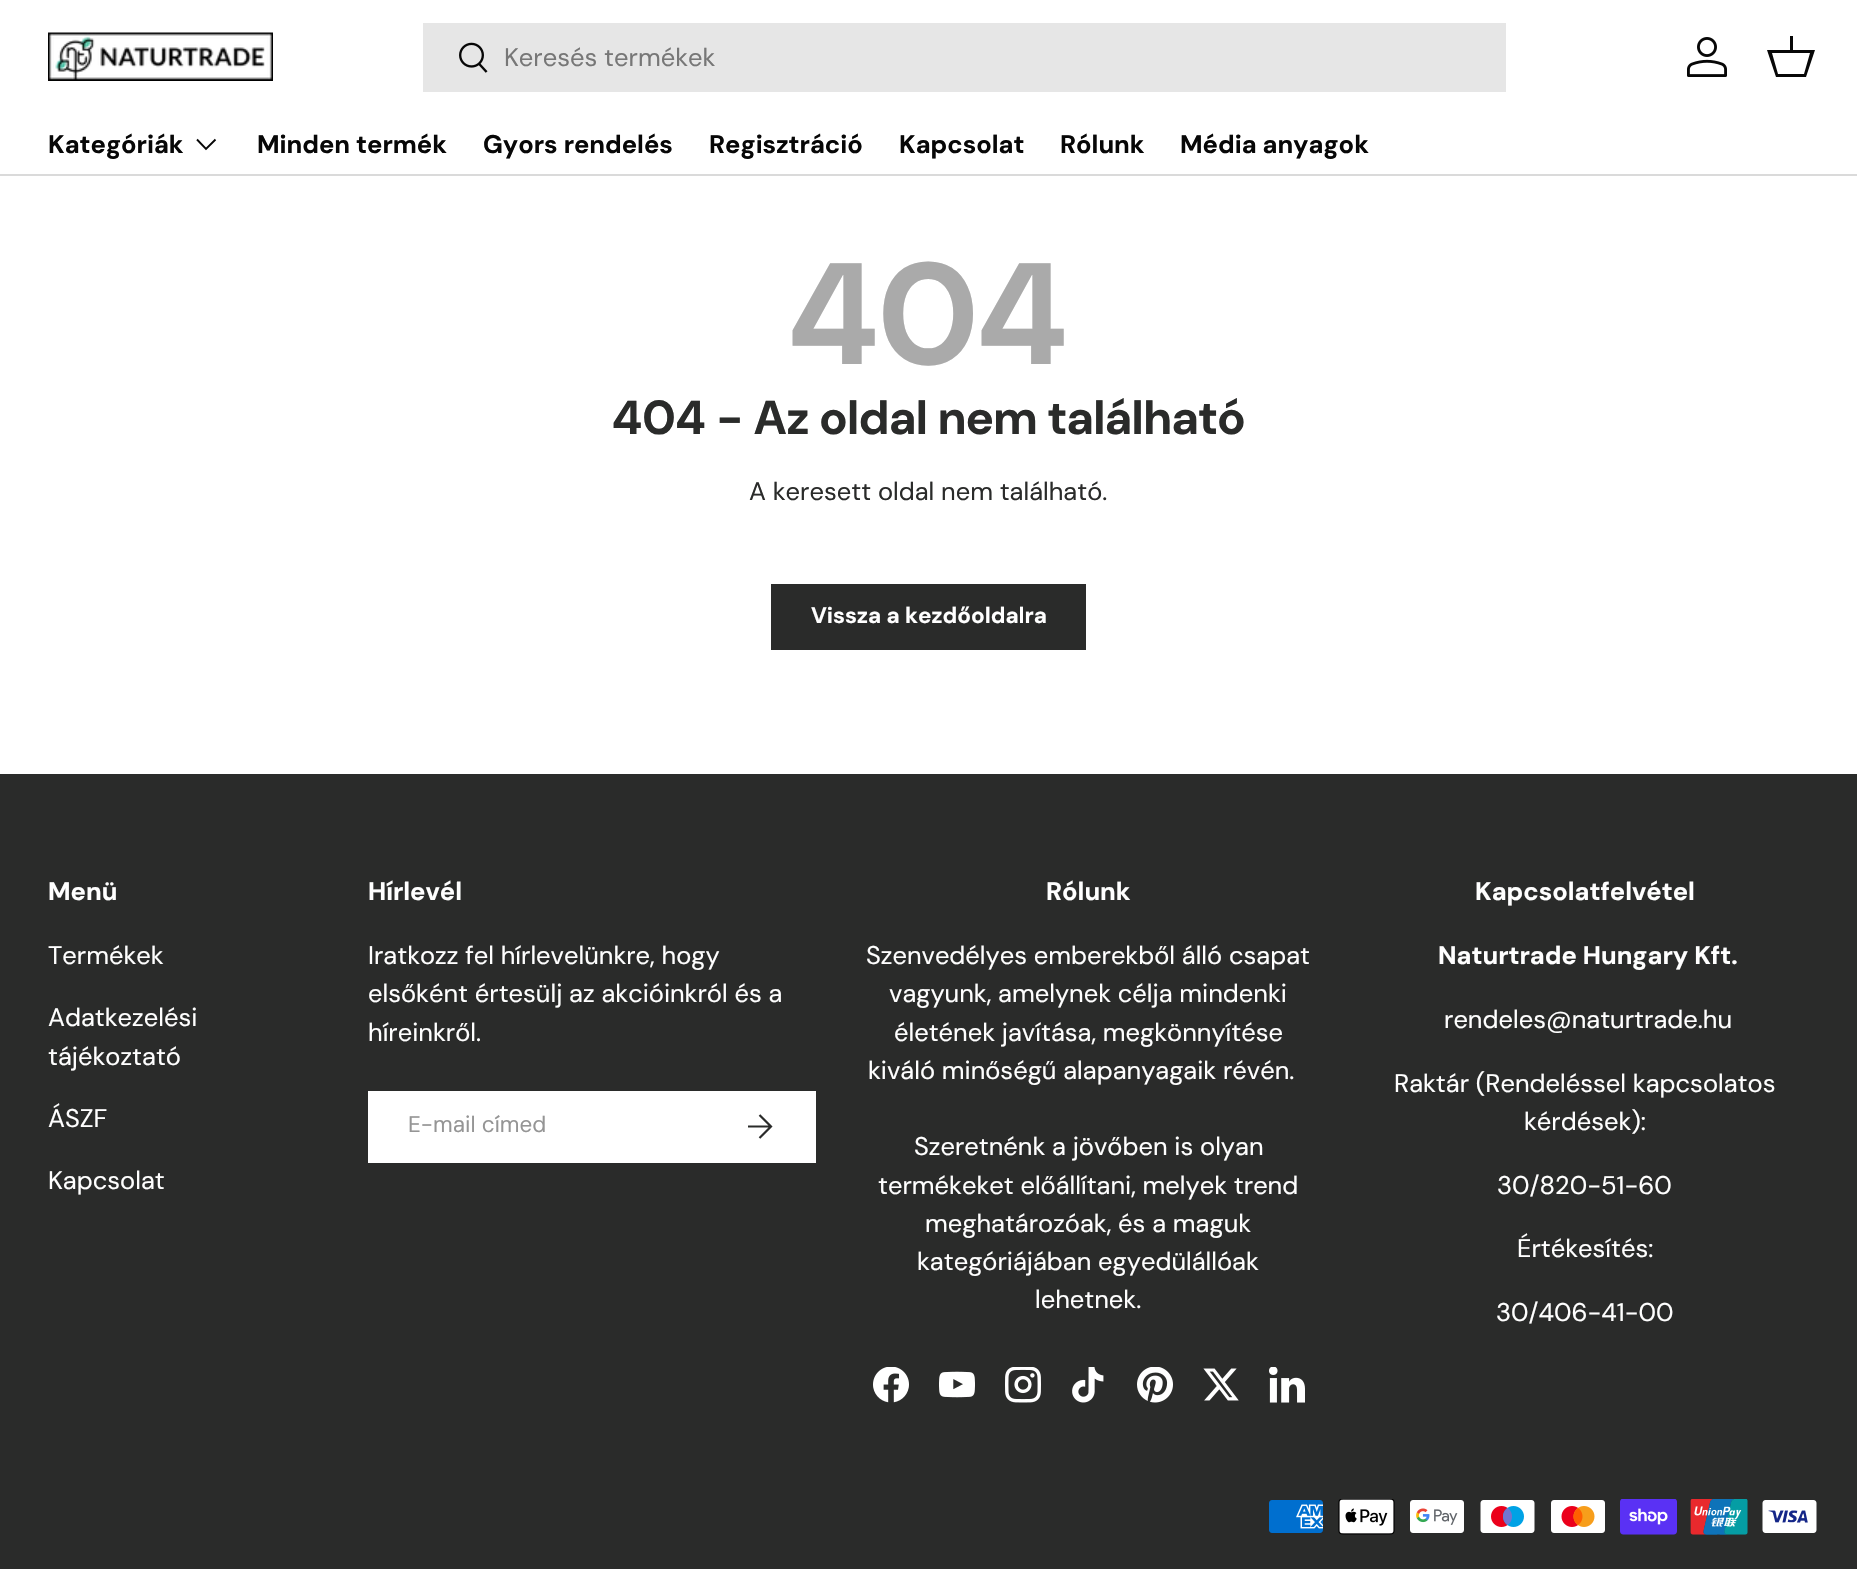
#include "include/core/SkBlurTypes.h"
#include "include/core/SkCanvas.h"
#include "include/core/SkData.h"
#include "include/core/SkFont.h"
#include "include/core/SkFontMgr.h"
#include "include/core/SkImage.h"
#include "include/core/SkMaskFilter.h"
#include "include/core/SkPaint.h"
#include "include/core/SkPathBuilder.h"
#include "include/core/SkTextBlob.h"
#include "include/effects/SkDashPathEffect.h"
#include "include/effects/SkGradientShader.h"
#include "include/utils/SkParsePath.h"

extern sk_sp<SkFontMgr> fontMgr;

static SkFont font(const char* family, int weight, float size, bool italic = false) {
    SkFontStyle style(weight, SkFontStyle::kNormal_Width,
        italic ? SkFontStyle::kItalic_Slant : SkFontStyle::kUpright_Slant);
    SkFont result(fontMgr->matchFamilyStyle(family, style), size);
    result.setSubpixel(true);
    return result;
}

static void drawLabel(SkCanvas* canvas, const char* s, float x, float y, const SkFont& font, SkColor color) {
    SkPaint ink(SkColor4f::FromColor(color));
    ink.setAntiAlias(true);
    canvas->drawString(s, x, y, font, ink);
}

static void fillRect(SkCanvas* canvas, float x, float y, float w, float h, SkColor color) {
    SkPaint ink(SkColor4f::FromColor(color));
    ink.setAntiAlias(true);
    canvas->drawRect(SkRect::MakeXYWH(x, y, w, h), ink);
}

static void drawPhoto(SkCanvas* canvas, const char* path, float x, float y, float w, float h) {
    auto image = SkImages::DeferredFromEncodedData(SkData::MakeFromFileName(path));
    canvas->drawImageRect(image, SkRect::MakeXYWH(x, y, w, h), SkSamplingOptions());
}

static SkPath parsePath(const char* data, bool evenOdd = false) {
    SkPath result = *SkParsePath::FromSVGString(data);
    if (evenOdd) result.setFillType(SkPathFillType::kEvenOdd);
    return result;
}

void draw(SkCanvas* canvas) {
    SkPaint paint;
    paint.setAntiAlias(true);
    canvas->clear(0xFFFFFFFF);
    fillRect(canvas, 0, 174, 1857, 2, 0xFFDADADA);
    drawPhoto(canvas, "assets/img1.png", 48, 32, 225, 49);
    fillRect(canvas, 423, 23, 1083, 69, 0xFFE6E6E6);
    drawPhoto(canvas, "assets/img2.png", 459, 42, 29, 31);
    SkFont font1 = font("DM Sans", 400, 25.5f);
    drawLabel(canvas, "Keresés termékek", 504, 66, font1, 0xFF777777);
    drawPhoto(canvas, "assets/img3.png", 1687, 37, 40, 40);
    paint.setColor(0xFF070707);
    canvas->drawPath(parsePath("M1790 50V36H1793V50H1815L1806 77H1776L1767 50ZM1772 53L1778 74H1804L1810 53Z"), paint);
    SkFont font2 = font("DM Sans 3", 700, 25.5f);
    drawLabel(canvas, "Kategóriák", 48, 153, font2, 0xFF070707);
    paint.setStroke(true);
    paint.setStrokeWidth(1.9f);
    canvas->drawPath(parsePath("M215.5 139.5L206 149L197 139.5"), paint);
    drawLabel(canvas, "Minden termék", 257, 153, font2, 0xFF070707);
    drawLabel(canvas, "Gyors rendelés", 483, 153, font2, 0xFF070707);
    drawLabel(canvas, "Regisztráció", 709, 153, font2, 0xFF070707);
    drawLabel(canvas, "Kapcsolat", 899, 153, font2, 0xFF070707);
    drawLabel(canvas, "Rólunk", 1060, 153, font2, 0xFF070707);
    drawLabel(canvas, "Média anyagok", 1180, 153, font2, 0xFF070707);
    SkFont font3 = font("DM Sans", 700, 144);
    drawLabel(canvas, "404", 789, 364, font3, 0xFFAAAAAA);
    SkFont font4 = font("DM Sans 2", 700, 47.6f);
    drawLabel(canvas, "404 - Az oldal nem található", 612, 434, font4, 0xFF2A2B2A);
    drawLabel(canvas, "A keresett oldal nem található.", 749, 500, font1, 0xFF2A2B2A);
    paint.setStroke(false);
    {
        const SkColor colors[] = {0xFF525352, 0xFF2A2B2A, 0xFF2A2B2A};
        const float stops[] = {0.6f, 0.6f, 1};
        const SkPoint ends[] = {{168, 505}, {1065, 728}};
        paint.setShader(SkGradientShader::MakeLinear(ends, colors, stops, 3, SkTileMode::kClamp));
        paint.setAlpha(255);
    }
    canvas->drawRect(SkRect::MakeXYWH(773, 586, 311, 62), paint);
    paint.setStroke(true);
    paint.setStrokeWidth(2);
    paint.setShader(nullptr);
    paint.setColor(0xFF2A2B2A);
    canvas->drawRect(SkRect::MakeXYWH(772, 585, 313, 64), paint);
    SkFont font5 = font("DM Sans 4", 700, 22.5f);
    drawLabel(canvas, "Vissza a kezdőoldalra", 811, 623, font5, 0xFFFFFFFF);
    fillRect(canvas, 0, 774, 1857, 795, 0xFF2A2B2A);
    drawLabel(canvas, "Menü", 48, 900, font2, 0xFFFFFFFF);
    drawLabel(canvas, "Termékek", 48, 964, font1, 0xFFFFFFFF);
    drawLabel(canvas, "Adatkezelési", 48, 1026, font1, 0xFFFFFFFF);
    drawLabel(canvas, "tájékoztató", 48, 1065, font1, 0xFFFFFFFF);
    drawLabel(canvas, "ÁSZF", 48, 1127, font1, 0xFFFFFFFF);
    drawLabel(canvas, "Kapcsolat", 48, 1189, font1, 0xFFFFFFFF);
    drawLabel(canvas, "Hírlevél", 368, 900, font2, 0xFFFFFFFF);
    drawLabel(canvas, "Iratkozz fel hírlevelünkre, hogy", 368, 964, font1, 0xFFFFFFFF);
    drawLabel(canvas, "elsőként értesülj az akcióinkról és a", 368, 1002, font1, 0xFFFFFFFF);
    drawLabel(canvas, "híreinkről.", 368, 1041, font1, 0xFFFFFFFF);
    fillRect(canvas, 368, 1091, 448, 72, 0xFFFFFFFF);
    SkFont font6 = font("DM Sans 2", 400, 22.5f);
    drawLabel(canvas, "E-mail címed", 408, 1132, font6, 0xFF959595);
    paint.setStrokeWidth(2.2f);
    canvas->drawPath(parsePath("M748 1126.5H770M759.5 1115L771 1126.5L759.5 1138"), paint);
    drawLabel(canvas, "Rólunk", 1046, 900, font2, 0xFFFFFFFF);
    drawLabel(canvas, "Szenvedélyes emberekből álló csapat", 866, 964, font1, 0xFFFFFFFF);
    drawLabel(canvas, "vagyunk, amelynek célja mindenki", 889, 1002, font1, 0xFFFFFFFF);
    drawLabel(canvas, "életének javítása, megkönnyítése", 894, 1041, font1, 0xFFFFFFFF);
    drawLabel(canvas, "kiváló minőségű alapanyagaik révén.", 868, 1079, font1, 0xFFFFFFFF);
    drawLabel(canvas, "Szeretnénk a jövőben is olyan", 914, 1155, font1, 0xFFFFFFFF);
    drawLabel(canvas, "termékeket előállítani, melyek trend", 878, 1194, font1, 0xFFFFFFFF);
    drawLabel(canvas, "meghatározóak, és a maguk", 925, 1232, font1, 0xFFFFFFFF);
    drawLabel(canvas, "kategóriájában egyedülállóak", 917, 1270, font1, 0xFFFFFFFF);
    drawLabel(canvas, "lehetnek.", 1035, 1308, font1, 0xFFFFFFFF);
    drawPhoto(canvas, "assets/img4.png", 873, 1367, 36, 36);
    drawPhoto(canvas, "assets/img5.png", 939, 1371, 36, 27);
    drawPhoto(canvas, "assets/img6.png", 1005, 1367, 36, 36);
    drawPhoto(canvas, "assets/img7.png", 1072, 1367, 32, 36);
    drawPhoto(canvas, "assets/img8.png", 1137, 1367, 36, 36);
    drawPhoto(canvas, "assets/img9.png", 1203, 1368, 36, 33);
    drawPhoto(canvas, "assets/img10.png", 1269, 1367, 36, 36);
    drawLabel(canvas, "Kapcsolatfelvétel", 1475, 900, font2, 0xFFFFFFFF);
    drawLabel(canvas, "Naturtrade Hungary Kft.", 1438, 964, font2, 0xFFFFFFFF);
    drawLabel(canvas, "rendeles@naturtrade.hu", 1444, 1028, font1, 0xFFFFFFFF);
    drawLabel(canvas, "Raktár (Rendeléssel kapcsolatos", 1394, 1092, font1, 0xFFFFFFFF);
    drawLabel(canvas, "kérdések):", 1524, 1130, font1, 0xFFFFFFFF);
    drawLabel(canvas, "30/820-51-60", 1497, 1194, font1, 0xFFFFFFFF);
    drawLabel(canvas, "Értékesítés:", 1517, 1257, font1, 0xFFFFFFFF);
    drawLabel(canvas, "30/406-41-00", 1496, 1321, font1, 0xFFFFFFFF);
    drawPhoto(canvas, "assets/img11.png", 1269, 1500, 54, 33);
    drawPhoto(canvas, "assets/img12.png", 1338, 1499, 57, 36);
    drawPhoto(canvas, "assets/img13.png", 1410, 1500, 54, 33);
    drawPhoto(canvas, "assets/img14.png", 1480, 1500, 55, 33);
    drawPhoto(canvas, "assets/img15.png", 1551, 1500, 54, 33);
    drawPhoto(canvas, "assets/img16.png", 1620, 1499, 57, 36);
    drawPhoto(canvas, "assets/img17.png", 1690, 1499, 58, 36);
    drawPhoto(canvas, "assets/img18.png", 1762, 1500, 55, 33);
}
